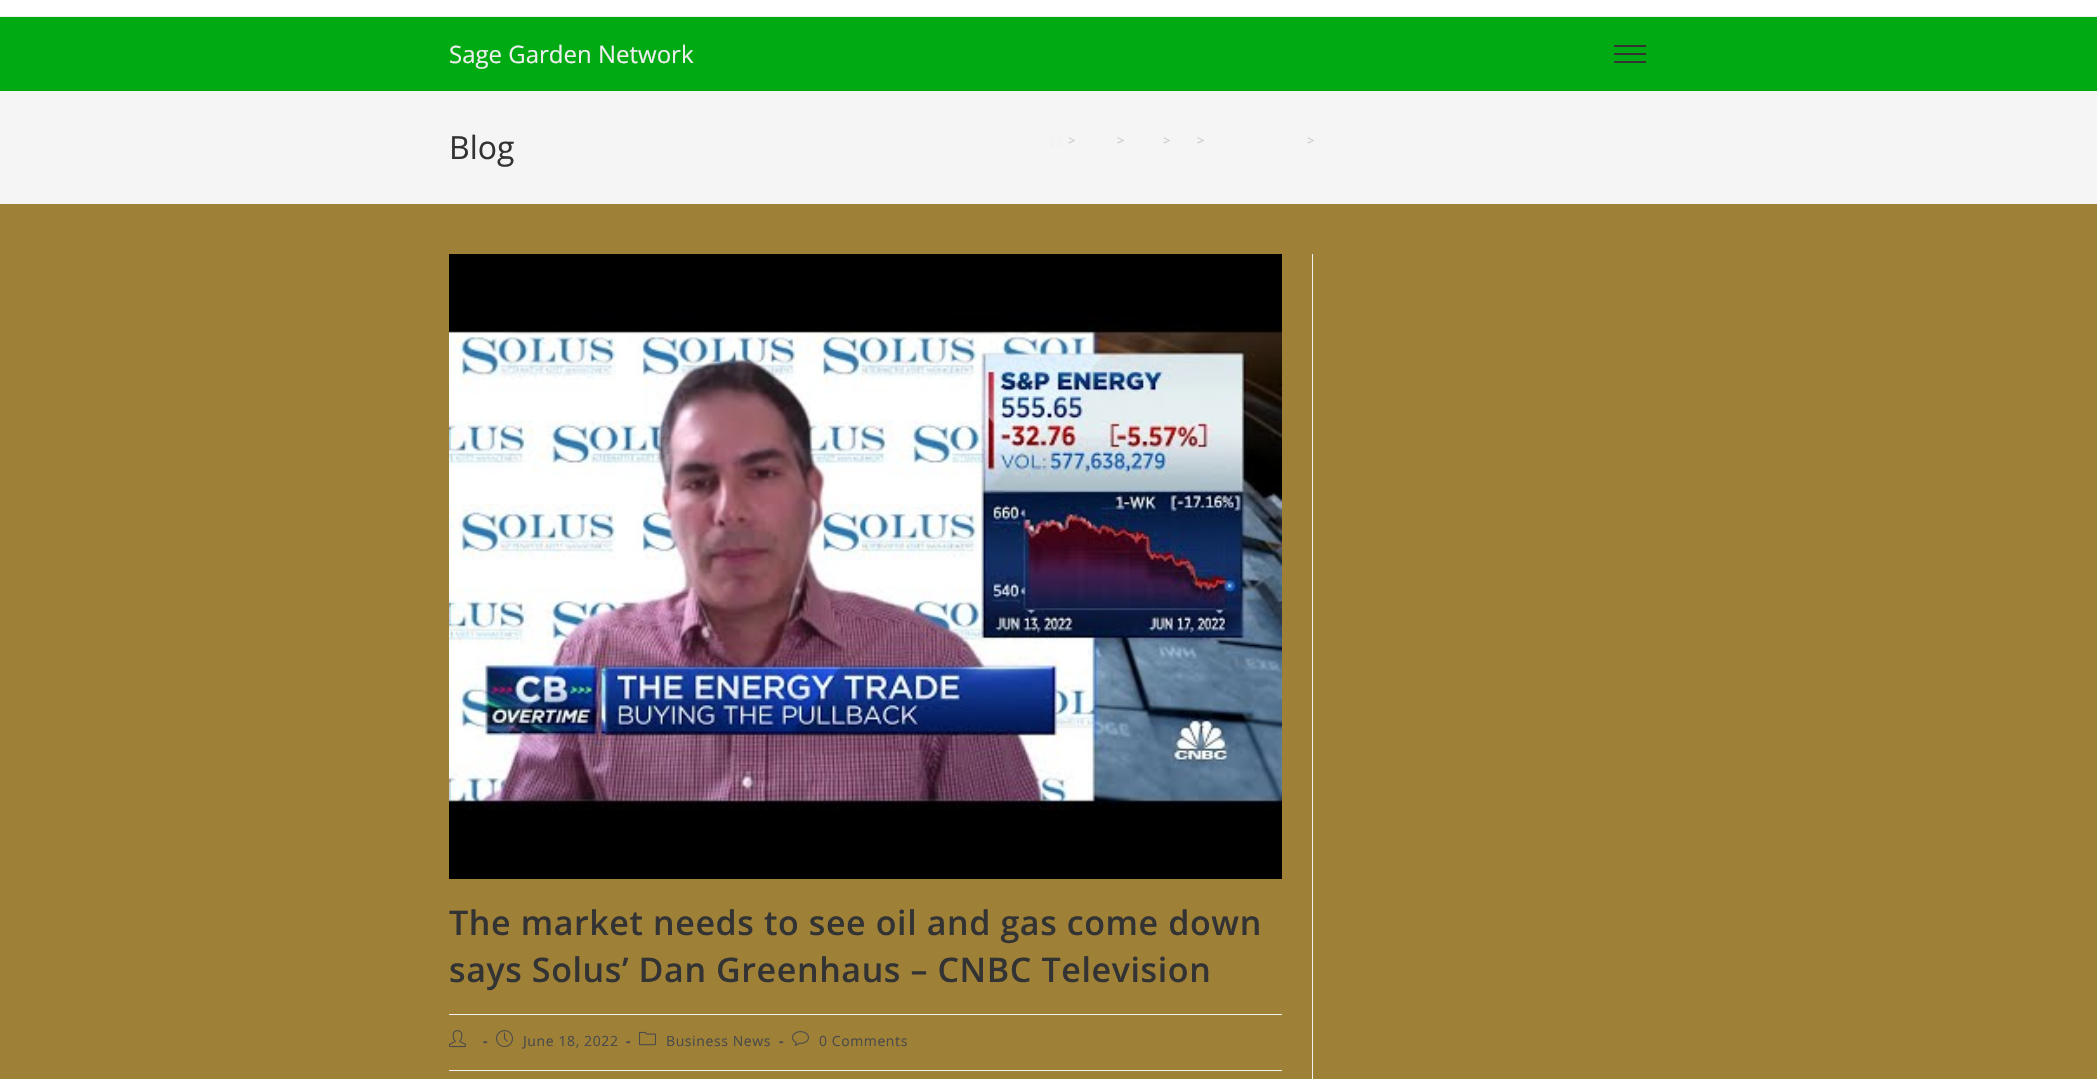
#include "include/core/SkBlurTypes.h"
#include "include/core/SkCanvas.h"
#include "include/core/SkData.h"
#include "include/core/SkFont.h"
#include "include/core/SkFontMgr.h"
#include "include/core/SkImage.h"
#include "include/core/SkMaskFilter.h"
#include "include/core/SkPaint.h"
#include "include/core/SkPathBuilder.h"
#include "include/core/SkTextBlob.h"
#include "include/effects/SkDashPathEffect.h"
#include "include/effects/SkGradientShader.h"
#include "include/utils/SkParsePath.h"

extern sk_sp<SkFontMgr> fontMgr;

static SkFont font(const char* family, int weight, float size, bool italic = false) {
    SkFontStyle style(weight, SkFontStyle::kNormal_Width,
        italic ? SkFontStyle::kItalic_Slant : SkFontStyle::kUpright_Slant);
    SkFont result(fontMgr->matchFamilyStyle(family, style), size);
    result.setSubpixel(true);
    return result;
}

static void drawLabel(SkCanvas* canvas, const char* s, float x, float y, const SkFont& font, SkColor color) {
    SkPaint ink(SkColor4f::FromColor(color));
    ink.setAntiAlias(true);
    canvas->drawString(s, x, y, font, ink);
}

static void drawTracked(SkCanvas* canvas, const char* s, float x, float y, const SkFont& font, const SkPaint& ink, float letter, float word) {
    std::vector<SkGlyphID> glyphs(font.countText(s, strlen(s), SkTextEncoding::kUTF8));
    std::vector<float> xs(glyphs.size());
    font.textToGlyphs(s, strlen(s), SkTextEncoding::kUTF8, glyphs);
    font.getXPos(glyphs, xs, x);
    float extra = 0;
    for (size_t i = 0; i < glyphs.size(); i++) {
        xs[i] += extra;
        extra += letter + word * (glyphs[i] == font.unicharToGlyph(' '));
    }
    canvas->drawTextBlob(SkTextBlob::MakeFromPosHGlyphs(glyphs, xs, y, font), 0, 0, ink);
}

static void fillRect(SkCanvas* canvas, float x, float y, float w, float h, SkColor color) {
    SkPaint ink(SkColor4f::FromColor(color));
    ink.setAntiAlias(true);
    canvas->drawRect(SkRect::MakeXYWH(x, y, w, h), ink);
}

static void drawPhoto(SkCanvas* canvas, const char* path, float x, float y, float w, float h) {
    auto image = SkImages::DeferredFromEncodedData(SkData::MakeFromFileName(path));
    canvas->drawImageRect(image, SkRect::MakeXYWH(x, y, w, h), SkSamplingOptions());
}

void draw(SkCanvas* canvas) {
    SkPaint paint;
    paint.setAntiAlias(true);
    canvas->clear(0xFF9E8037);
    fillRect(canvas, 0, 0, 2097, 16, 0xFFFFFFFF);
    fillRect(canvas, 0, 16, 2097, 1, 0xFFF1F1F1);
    fillRect(canvas, 0, 17, 2097, 74, 0xFF00AA13);
    SkFont font1 = font("Open Sans", 400, 24);
    drawLabel(canvas, "Sage Garden Network", 449, 63, font1, 0xFFEFEFEF);
    fillRect(canvas, 1614, 53, 32, 2, 0xFF333333);
    fillRect(canvas, 1614, 45, 32, 2, 0xFF333333);
    fillRect(canvas, 1614, 61, 32, 2, 0xFF333333);
    fillRect(canvas, 0, 91, 2097, 113, 0xFFF5F5F5);
    SkFont font2 = font("Open Sans", 400, 32);
    drawLabel(canvas, "Blog", 449, 159, font2, 0xFF333333);
    drawPhoto(canvas, "assets/img1.png", 1049, 133, 13, 13);
    SkFont font3 = font("Open Sans", 400, 13);
    drawLabel(canvas, ">", 1068, 145, font3, 0xFFC6C6C6);
    drawLabel(canvas, ">", 1117, 145, font3, 0xFFC6C6C6);
    drawLabel(canvas, ">", 1163, 145, font3, 0xFFC6C6C6);
    drawLabel(canvas, ">", 1197, 145, font3, 0xFFC6C6C6);
    drawLabel(canvas, ">", 1307, 145, font3, 0xFFC6C6C6);
    fillRect(canvas, 1312, 254, 1, 825, 0xFFF1F1F1);
    drawPhoto(canvas, "assets/img2.png", 449, 254, 833, 625);
    fillRect(canvas, 449, 1014, 833, 1, 0xFFF1F1F1);
    SkFont font4 = font("Open Sans", 600, 34);
    paint.setColor(0xFF333333);
    drawTracked(canvas, "The market needs to see oil and gas come down", 449, 935, font4, paint, 0.6f, 0);
    drawTracked(canvas, "says Solus’ Dan Greenhaus – CNBC Television", 449, 982, font4, paint, 0.6f, 0);
    fillRect(canvas, 449, 1070, 833, 1, 0xFFF1F1F1);
    drawPhoto(canvas, "assets/img3.png", 449, 1030, 17, 18);
    SkFont font5 = font("Open Sans", 700, 14);
    paint.setColor(0xFF4A4A4A);
    drawTracked(canvas, "-", 483, 1046, font5, paint, 0.6f, 0);
    drawPhoto(canvas, "assets/img4.png", 496, 1030, 17, 17);
    SkFont font6 = font("Open Sans", 400, 14);
    drawTracked(canvas, "June 18, 2022", 523, 1046, font6, paint, 0.6f, 0);
    drawTracked(canvas, "-", 626, 1046, font5, paint, 0.6f, 0);
    drawPhoto(canvas, "assets/img5.png", 639, 1031, 17, 15);
    drawTracked(canvas, "Business News", 666, 1046, font6, paint, 0.6f, 0);
    drawTracked(canvas, "-", 779, 1046, font5, paint, 0.6f, 0);
    drawPhoto(canvas, "assets/img6.png", 792, 1031, 17, 15);
    drawTracked(canvas, "0 Comments", 819, 1046, font6, paint, 0.6f, 0);
}
